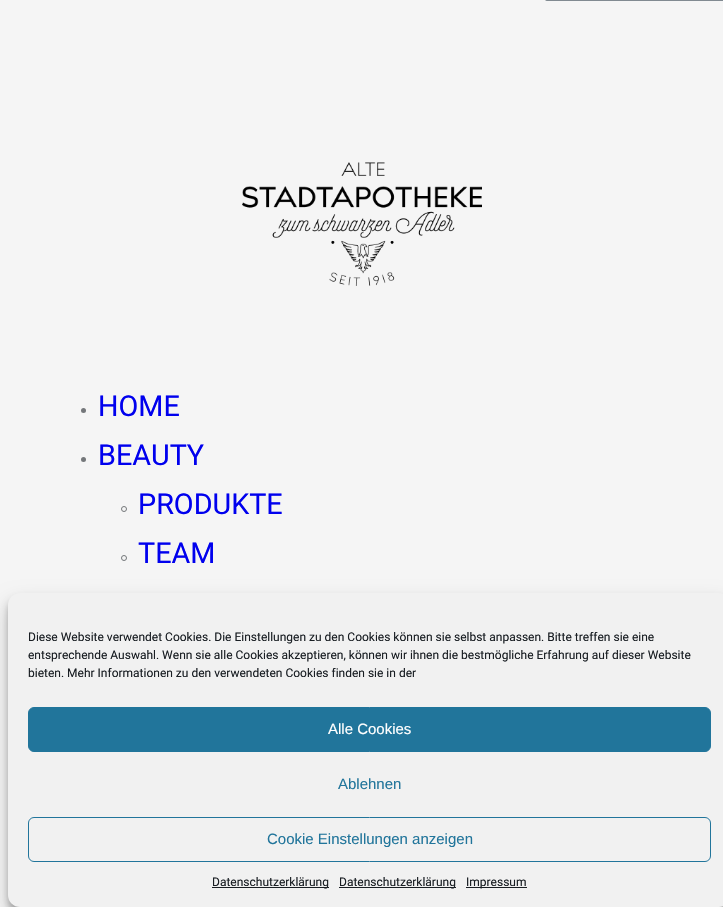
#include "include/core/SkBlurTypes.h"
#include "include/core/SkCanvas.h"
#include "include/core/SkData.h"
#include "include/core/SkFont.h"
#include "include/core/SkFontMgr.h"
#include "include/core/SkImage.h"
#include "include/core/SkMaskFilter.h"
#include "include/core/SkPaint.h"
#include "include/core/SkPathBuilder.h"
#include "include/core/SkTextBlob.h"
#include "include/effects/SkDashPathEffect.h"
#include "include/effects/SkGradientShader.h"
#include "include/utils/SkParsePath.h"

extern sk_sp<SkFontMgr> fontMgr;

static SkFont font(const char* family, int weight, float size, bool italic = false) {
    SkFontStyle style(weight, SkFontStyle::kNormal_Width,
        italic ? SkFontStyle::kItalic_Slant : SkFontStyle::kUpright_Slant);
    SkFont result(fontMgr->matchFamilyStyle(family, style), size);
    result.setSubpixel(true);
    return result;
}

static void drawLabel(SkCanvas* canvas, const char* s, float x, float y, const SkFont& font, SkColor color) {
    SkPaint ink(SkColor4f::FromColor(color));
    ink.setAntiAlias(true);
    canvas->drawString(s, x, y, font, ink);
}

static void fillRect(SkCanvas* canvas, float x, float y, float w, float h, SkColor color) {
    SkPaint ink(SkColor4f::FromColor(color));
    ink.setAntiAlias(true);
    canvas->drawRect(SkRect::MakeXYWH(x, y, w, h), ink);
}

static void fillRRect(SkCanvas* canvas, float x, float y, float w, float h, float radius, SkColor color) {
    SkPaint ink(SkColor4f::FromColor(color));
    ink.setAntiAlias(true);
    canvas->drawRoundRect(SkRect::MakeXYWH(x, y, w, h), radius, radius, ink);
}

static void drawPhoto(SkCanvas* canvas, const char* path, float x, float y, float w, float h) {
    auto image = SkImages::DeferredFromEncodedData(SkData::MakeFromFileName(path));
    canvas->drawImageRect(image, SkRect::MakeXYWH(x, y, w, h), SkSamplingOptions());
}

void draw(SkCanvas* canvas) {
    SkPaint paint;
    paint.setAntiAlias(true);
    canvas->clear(0xFFF5F5F5);
    fillRRect(canvas, 545, -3, 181, 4, 3, 0xFF818A91);
    drawPhoto(canvas, "assets/img1.png", 242, 162, 240, 124);
    paint.setColor(0xFF74777A);
    canvas->drawCircle(83.5f, 410.5f, 2.5f, paint);
    SkFont font1 = font("Roboto", 400, 28.75f);
    drawLabel(canvas, "HOME", 98, 416, font1, 0xFF0000EE);
    canvas->drawCircle(83.5f, 459.5f, 2.5f, paint);
    drawLabel(canvas, "BEAUTY", 98, 465, font1, 0xFF0000EE);
    paint.setStroke(true);
    paint.setStrokeWidth(1);
    canvas->drawCircle(124, 509, 2.5f, paint);
    drawLabel(canvas, "PRODUKTE", 138, 514, font1, 0xFF0000EE);
    canvas->drawCircle(124, 558, 2.5f, paint);
    drawLabel(canvas, "TEAM", 138, 563, font1, 0xFF0000EE);
    paint.setStroke(false);
    paint.setColor(0x3B000000);
    paint.setMaskFilter(SkMaskFilter::MakeBlur(kNormal_SkBlurStyle, 3));
    canvas->drawRoundRect(SkRect::MakeXYWH(8, 599, 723, 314), 12, 12, paint);
    paint.setMaskFilter(nullptr);
    paint.setColor(0x30000000);
    paint.setMaskFilter(SkMaskFilter::MakeBlur(kNormal_SkBlurStyle, 10));
    canvas->drawRoundRect(SkRect::MakeXYWH(8, 603, 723, 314), 12, 12, paint);
    paint.setMaskFilter(nullptr);
    fillRRect(canvas, 8, 593, 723, 314, 12, 0xFFF1F1F1);
    SkFont font2 = font("Roboto", 400, 12);
    drawLabel(canvas, "Diese Website verwendet Cookies. Die Einstellungen zu den Cookies können sie selbst anpassen. Bitte treffen sie eine", 28, 641, font2, 0xFF191E23);
    drawLabel(canvas, "entsprechende Auswahl. Wenn sie alle Cookies akzeptieren, können wir ihnen die bestmögliche Erfahrung auf dieser Website", 28, 659, font2, 0xFF191E23);
    drawLabel(canvas, "bieten. Mehr Informationen zu den verwendeten Cookies finden sie in der", 28, 677, font2, 0xFF191E23);
    paint.setColor(0xFF21759B);
    canvas->drawRoundRect(SkRect::MakeXYWH(28.5f, 707.5f, 682, 44), 5.5f, 5.5f, paint);
    paint.setStroke(true);
    canvas->drawRoundRect(SkRect::MakeXYWH(28.5f, 707.5f, 682, 44), 5.5f, 5.5f, paint);
    SkFont font3 = font("Liberation Sans", 400, 15);
    drawLabel(canvas, "Alle Cookies", 328, 734, font3, 0xFFFFFFFF);
    drawLabel(canvas, "Ablehnen", 338, 789, font3, 0xFF21759B);
    canvas->drawRoundRect(SkRect::MakeXYWH(28.5f, 817.5f, 682, 44), 5.5f, 5.5f, paint);
    drawLabel(canvas, "Cookie Einstellungen anzeigen", 267, 844, font3, 0xFF21759B);
    fillRect(canvas, 212, 887, 117, 1, 0xFF191E23);
    drawLabel(canvas, "Datenschutzerklärung", 212, 886, font2, 0xFF191E23);
    fillRect(canvas, 339, 887, 117, 1, 0xFF191E23);
    drawLabel(canvas, "Datenschutzerklärung", 339, 886, font2, 0xFF191E23);
    fillRect(canvas, 466, 887, 61, 1, 0xFF191E23);
    drawLabel(canvas, "Impressum", 466, 886, font2, 0xFF191E23);
}
